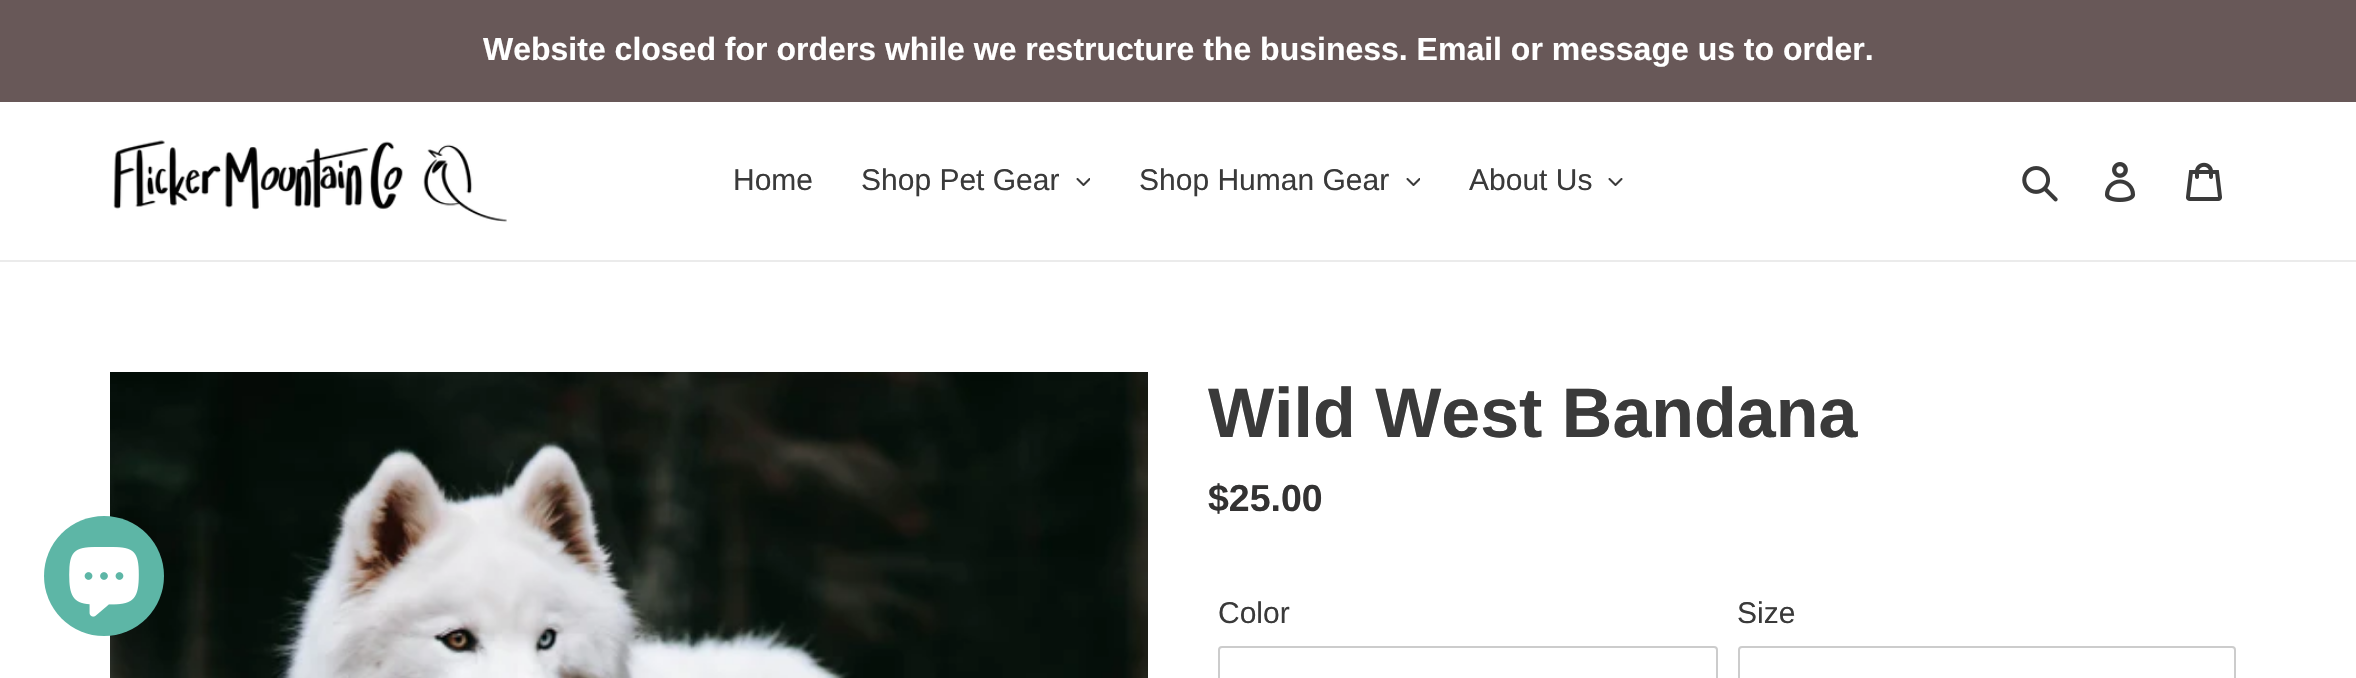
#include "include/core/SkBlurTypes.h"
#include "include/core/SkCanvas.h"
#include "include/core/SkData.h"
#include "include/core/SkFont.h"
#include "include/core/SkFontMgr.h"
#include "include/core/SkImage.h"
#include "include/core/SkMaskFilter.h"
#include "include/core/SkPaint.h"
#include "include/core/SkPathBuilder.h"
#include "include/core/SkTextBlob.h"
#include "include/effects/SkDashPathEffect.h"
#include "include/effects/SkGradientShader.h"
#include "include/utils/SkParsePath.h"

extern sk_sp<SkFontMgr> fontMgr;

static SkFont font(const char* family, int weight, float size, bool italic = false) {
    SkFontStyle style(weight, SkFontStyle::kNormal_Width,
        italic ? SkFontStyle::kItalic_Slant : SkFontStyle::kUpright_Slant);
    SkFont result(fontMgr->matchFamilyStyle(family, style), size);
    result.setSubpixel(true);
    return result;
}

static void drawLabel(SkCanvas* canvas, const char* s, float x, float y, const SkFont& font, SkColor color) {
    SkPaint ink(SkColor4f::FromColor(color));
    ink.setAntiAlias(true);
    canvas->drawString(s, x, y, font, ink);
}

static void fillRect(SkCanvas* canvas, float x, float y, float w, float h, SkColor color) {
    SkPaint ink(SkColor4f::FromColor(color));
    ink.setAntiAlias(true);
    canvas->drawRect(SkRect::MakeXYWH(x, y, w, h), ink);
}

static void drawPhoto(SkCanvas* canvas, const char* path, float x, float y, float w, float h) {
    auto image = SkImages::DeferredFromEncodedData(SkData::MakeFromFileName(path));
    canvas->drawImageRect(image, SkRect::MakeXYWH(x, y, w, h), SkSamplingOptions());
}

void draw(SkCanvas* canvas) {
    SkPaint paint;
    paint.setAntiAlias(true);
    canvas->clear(0xFFFFFFFF);
    fillRect(canvas, 0, 0, 2356, 102, 0xFF685858);
    SkFont font1 = font("Liberation Sans", 700, 32);
    drawLabel(canvas, "Website closed for orders while we restructure the business. Email or message us to order.", 483, 60, font1, 0xFFFFFFFF);
    fillRect(canvas, 0, 260, 2356, 2, 0xFFEBEBEB);
    drawPhoto(canvas, "assets/img1.png", 113, 140, 394, 82);
    SkFont font2 = font("Liberation Sans", 400, 30);
    drawLabel(canvas, "Home", 733, 190, font2, 0xFF3A3A3A);
    drawLabel(canvas, "Shop Pet Gear", 861, 190, font2, 0xFF3A3A3A);
    drawPhoto(canvas, "assets/img2.png", 1076, 178, 14, 8);
    drawLabel(canvas, "Shop Human Gear", 1139, 190, font2, 0xFF3A3A3A);
    drawPhoto(canvas, "assets/img2.png", 1406, 178, 14, 8);
    drawLabel(canvas, "About Us", 1469, 190, font2, 0xFF3A3A3A);
    drawPhoto(canvas, "assets/img3.png", 1608, 178, 15, 8);
    drawPhoto(canvas, "assets/img4.png", 2022, 166, 36, 36);
    drawPhoto(canvas, "assets/img5.png", 2105, 162, 31, 40);
    drawPhoto(canvas, "assets/img6.png", 2186, 162, 36, 39);
    drawPhoto(canvas, "assets/img8.png", 110, 372, 1038, 306);
    paint.setColor(0xFF5DB6A6);
    canvas->drawCircle(104, 576, 60, paint);
    drawPhoto(canvas, "assets/img7.png", 69, 547, 70, 70);
    SkFont font3 = font("Liberation Sans", 700, 70);
    drawLabel(canvas, "Wild West Bandana", 1208, 437, font3, 0xFF3A3A3A);
    SkFont font4 = font("Liberation Sans", 700, 37.5f);
    drawLabel(canvas, "$25.00", 1208, 511, font4, 0xFF333232);
    drawLabel(canvas, "Color", 1218, 623, font2, 0xFF3A3A3A);
    paint.setStroke(true);
    paint.setStrokeWidth(2);
    paint.setColor(0xFFCCCCCC);
    canvas->drawRoundRect(SkRect::MakeXYWH(1219, 647, 498, 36), 3, 3, paint);
    drawLabel(canvas, "Size", 1737, 623, font2, 0xFF3A3A3A);
    canvas->drawRoundRect(SkRect::MakeXYWH(1739, 647, 496, 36), 3, 3, paint);
}
